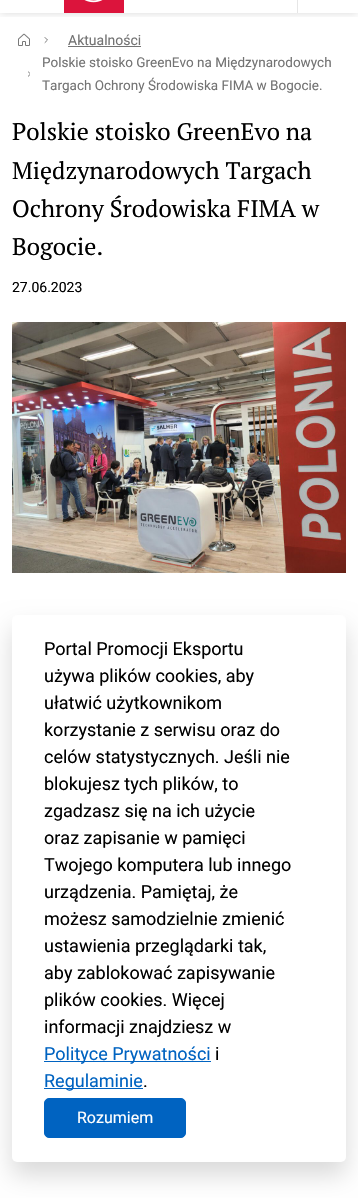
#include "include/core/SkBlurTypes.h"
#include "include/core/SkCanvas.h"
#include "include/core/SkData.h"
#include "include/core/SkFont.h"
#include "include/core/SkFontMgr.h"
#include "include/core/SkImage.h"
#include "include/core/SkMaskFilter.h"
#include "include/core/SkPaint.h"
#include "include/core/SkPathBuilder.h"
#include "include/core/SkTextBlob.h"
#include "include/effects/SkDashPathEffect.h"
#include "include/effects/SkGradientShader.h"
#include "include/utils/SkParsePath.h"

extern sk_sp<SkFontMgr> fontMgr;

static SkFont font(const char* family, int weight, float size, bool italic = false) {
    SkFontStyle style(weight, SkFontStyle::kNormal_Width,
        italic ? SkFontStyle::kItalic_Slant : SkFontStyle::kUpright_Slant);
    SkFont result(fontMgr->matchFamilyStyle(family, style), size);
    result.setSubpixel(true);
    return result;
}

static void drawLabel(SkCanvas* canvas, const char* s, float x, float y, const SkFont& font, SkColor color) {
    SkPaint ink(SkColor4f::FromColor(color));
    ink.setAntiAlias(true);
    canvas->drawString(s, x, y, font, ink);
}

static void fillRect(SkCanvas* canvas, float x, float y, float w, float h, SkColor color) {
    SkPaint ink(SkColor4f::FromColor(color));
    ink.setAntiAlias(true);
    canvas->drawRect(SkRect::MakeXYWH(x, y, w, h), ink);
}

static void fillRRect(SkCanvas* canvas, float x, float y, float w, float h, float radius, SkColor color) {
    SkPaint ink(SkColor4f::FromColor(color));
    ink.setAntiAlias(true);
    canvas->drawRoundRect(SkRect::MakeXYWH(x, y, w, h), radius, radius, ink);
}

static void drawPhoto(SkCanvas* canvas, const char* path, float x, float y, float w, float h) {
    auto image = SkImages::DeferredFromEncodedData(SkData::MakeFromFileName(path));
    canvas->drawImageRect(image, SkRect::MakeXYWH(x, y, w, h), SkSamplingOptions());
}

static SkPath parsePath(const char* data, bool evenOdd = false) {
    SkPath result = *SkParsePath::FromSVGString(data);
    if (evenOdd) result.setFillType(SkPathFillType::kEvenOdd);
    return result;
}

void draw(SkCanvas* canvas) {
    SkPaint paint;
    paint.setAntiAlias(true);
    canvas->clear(0xFFFFFFFF);
    canvas->save();
    canvas->clipRect(SkRect::MakeXYWH(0, 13, 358, 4));
    paint.setColor(0x26000000);
    paint.setMaskFilter(SkMaskFilter::MakeBlur(kNormal_SkBlurStyle, 4));
    canvas->drawRect(SkRect::MakeXYWH(0, -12, 358, 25), paint);
    paint.setMaskFilter(nullptr);
    canvas->restore();
    fillRect(canvas, 64, 0, 60, 13, 0xFFDC143C);
    drawPhoto(canvas, "assets/img1.png", 84, 0, 19, 3);
    fillRect(canvas, 297, 0, 1, 13, 0xFFE6E6E6);
    drawPhoto(canvas, "assets/img2.png", 18, 33, 12, 13);
    paint.setStroke(true);
    paint.setStrokeWidth(1);
    paint.setStrokeCap(SkPaint::kRound_Cap);
    paint.setStrokeJoin(SkPaint::kRound_Join);
    paint.setColor(0xFF797979);
    canvas->drawPath(parsePath("M45 37.5L47.5 40L45 42.5"), paint);
    SkFont font1 = font("Roboto", 400, 14);
    drawLabel(canvas, "Aktualności", 68, 45, font1, 0xFF737373);
    fillRect(canvas, 68, 46, 73, 1, 0xFF737373);
    SkFont font2 = font("Roboto", 400, 13.5f);
    drawLabel(canvas, "Polskie stoisko GreenEvo na Międzynarodowych", 42, 67, font2, 0xFF737373);
    canvas->save();
    canvas->clipRect(SkRect::MakeXYWH(28, 70, 2, 8));
    canvas->drawPath(parsePath("M28 71.5L30.5 74L28 76.5"), paint);
    canvas->restore();
    drawLabel(canvas, "Targach Ochrony Środowiska FIMA w Bogocie.", 42, 90, font2, 0xFF737373);
    SkFont font3 = font("PT Serif", 400, 24);
    drawLabel(canvas, "Polskie stoisko GreenEvo na", 12, 140, font3, 0xFF000000);
    drawLabel(canvas, "Międzynarodowych Targach", 12, 179, font3, 0xFF000000);
    drawLabel(canvas, "Ochrony Środowiska FIMA w", 12, 217, font3, 0xFF000000);
    drawLabel(canvas, "Bogocie.", 12, 255, font3, 0xFF000000);
    drawLabel(canvas, "27.06.2023", 12, 292, font1, 0xFF000000);
    drawPhoto(canvas, "assets/img3.png", 12, 322, 334, 251);
    paint.setStroke(false);
    paint.setColor(0x26000000);
    paint.setMaskFilter(SkMaskFilter::MakeBlur(kNormal_SkBlurStyle, 12.5f));
    canvas->drawRoundRect(SkRect::MakeXYWH(12, 628, 334, 547), 5, 5, paint);
    paint.setMaskFilter(nullptr);
    fillRRect(canvas, 12, 615, 334, 547, 5, 0xFFFFFFFF);
    SkFont font4 = font("Roboto", 400, 18);
    drawLabel(canvas, "Portal Promocji Eksportu", 44, 655, font4, 0xFF000000);
    drawLabel(canvas, "używa plików cookies, aby", 44, 682, font4, 0xFF000000);
    drawLabel(canvas, "ułatwić użytkownikom", 44, 709, font4, 0xFF000000);
    drawLabel(canvas, "korzystanie z serwisu oraz do", 44, 736, font4, 0xFF000000);
    drawLabel(canvas, "celów statystycznych. Jeśli nie", 44, 763, font4, 0xFF000000);
    drawLabel(canvas, "blokujesz tych plików, to", 44, 790, font4, 0xFF000000);
    drawLabel(canvas, "zgadzasz się na ich użycie", 44, 817, font4, 0xFF000000);
    drawLabel(canvas, "oraz zapisanie w pamięci", 44, 844, font4, 0xFF000000);
    drawLabel(canvas, "Twojego komputera lub innego", 44, 871, font4, 0xFF000000);
    drawLabel(canvas, "urządzenia. Pamiętaj, że", 44, 898, font4, 0xFF000000);
    drawLabel(canvas, "możesz samodzielnie zmienić", 44, 925, font4, 0xFF000000);
    drawLabel(canvas, "ustawienia przeglądarki tak,", 44, 952, font4, 0xFF000000);
    drawLabel(canvas, "aby zablokować zapisywanie", 44, 979, font4, 0xFF000000);
    drawLabel(canvas, "plików cookies. Więcej", 44, 1006, font4, 0xFF000000);
    drawLabel(canvas, "informacji znajdziesz w", 44, 1033, font4, 0xFF000000);
    fillRect(canvas, 44, 1061, 167, 1, 0xFF0063C1);
    drawLabel(canvas, "Polityce Prywatności", 44, 1060, font4, 0xFF0063C1);
    drawLabel(canvas, "i", 215, 1060, font4, 0xFF000000);
    fillRect(canvas, 44, 1088, 99, 1, 0xFF0063C1);
    drawLabel(canvas, "Regulaminie", 44, 1087, font4, 0xFF0063C1);
    drawLabel(canvas, ".", 143, 1087, font4, 0xFF000000);
    paint.setColor(0xFF0063C1);
    canvas->drawRoundRect(SkRect::MakeXYWH(44.5f, 1098.5f, 141, 39), 4.5f, 4.5f, paint);
    paint.setStroke(true);
    paint.setStrokeCap(SkPaint::kButt_Cap);
    paint.setStrokeJoin(SkPaint::kMiter_Join);
    canvas->drawRoundRect(SkRect::MakeXYWH(44.5f, 1098.5f, 141, 39), 4.5f, 4.5f, paint);
    SkFont font5 = font("Roboto", 400, 16);
    drawLabel(canvas, "Rozumiem", 77, 1123, font5, 0xFFFFFFFF);
}
